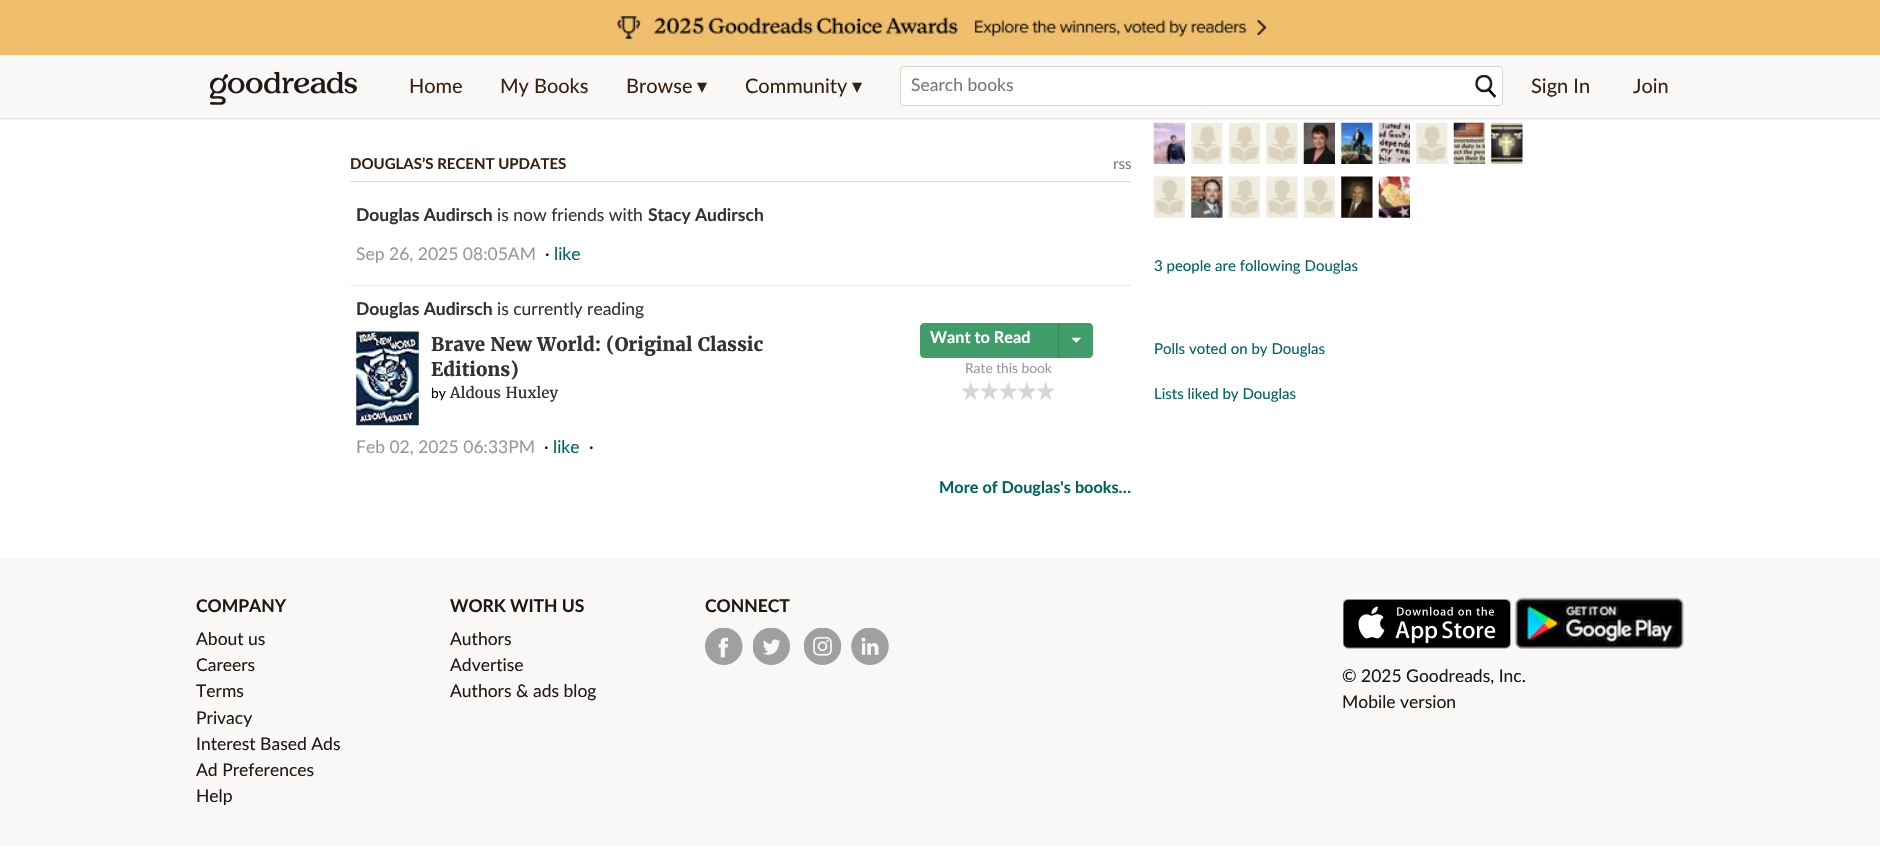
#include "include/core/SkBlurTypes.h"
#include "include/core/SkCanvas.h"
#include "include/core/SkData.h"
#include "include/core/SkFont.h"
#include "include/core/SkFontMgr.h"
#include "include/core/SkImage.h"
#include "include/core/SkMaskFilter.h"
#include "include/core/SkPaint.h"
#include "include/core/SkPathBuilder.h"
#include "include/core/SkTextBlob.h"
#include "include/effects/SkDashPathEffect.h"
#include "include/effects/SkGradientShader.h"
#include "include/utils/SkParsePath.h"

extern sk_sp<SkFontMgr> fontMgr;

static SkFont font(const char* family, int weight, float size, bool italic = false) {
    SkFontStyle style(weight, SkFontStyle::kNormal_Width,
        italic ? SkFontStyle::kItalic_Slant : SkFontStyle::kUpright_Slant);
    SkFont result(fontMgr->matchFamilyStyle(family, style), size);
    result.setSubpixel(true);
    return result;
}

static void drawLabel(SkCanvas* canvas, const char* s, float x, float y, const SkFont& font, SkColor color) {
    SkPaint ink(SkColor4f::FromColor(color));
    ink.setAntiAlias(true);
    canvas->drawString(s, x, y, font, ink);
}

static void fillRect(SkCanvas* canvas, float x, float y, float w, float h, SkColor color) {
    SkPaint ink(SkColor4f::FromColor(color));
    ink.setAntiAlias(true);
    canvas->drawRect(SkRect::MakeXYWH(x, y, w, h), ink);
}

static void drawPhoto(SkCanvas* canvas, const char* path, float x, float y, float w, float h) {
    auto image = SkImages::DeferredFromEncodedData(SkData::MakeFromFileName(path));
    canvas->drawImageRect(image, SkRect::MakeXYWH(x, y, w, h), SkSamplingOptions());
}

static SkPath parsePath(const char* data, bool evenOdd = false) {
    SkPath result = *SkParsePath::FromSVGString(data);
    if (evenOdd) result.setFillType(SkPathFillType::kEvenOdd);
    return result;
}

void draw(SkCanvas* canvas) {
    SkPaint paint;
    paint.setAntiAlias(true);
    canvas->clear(0xFFFFFFFF);
    fillRect(canvas, 0, 0, 1880, 55, 0xFFF0BF6E);
    drawPhoto(canvas, "assets/img1.png", 610, 10, 660, 30);
    drawPhoto(canvas, "assets/img10.png", 1153, 122, 32, 42);
    drawPhoto(canvas, "assets/img11.png", 1191, 122, 32, 42);
    drawPhoto(canvas, "assets/img12.png", 1228, 122, 32, 42);
    drawPhoto(canvas, "assets/img13.png", 1266, 122, 32, 42);
    drawPhoto(canvas, "assets/img14.png", 1303, 122, 32, 42);
    drawPhoto(canvas, "assets/img15.png", 1341, 122, 32, 42);
    drawPhoto(canvas, "assets/img16.png", 1378, 122, 32, 42);
    drawPhoto(canvas, "assets/img13.png", 1416, 122, 32, 42);
    drawPhoto(canvas, "assets/img17.png", 1453, 122, 32, 42);
    drawPhoto(canvas, "assets/img18.png", 1491, 122, 32, 42);
    paint.setColor(0x26000000);
    paint.setMaskFilter(SkMaskFilter::MakeBlur(kNormal_SkBlurStyle, 1));
    canvas->drawRect(SkRect::MakeXYWH(0, 56, 1880, 63), paint);
    paint.setMaskFilter(nullptr);
    fillRect(canvas, 0, 55, 1880, 63, 0xFFFAF8F6);
    drawPhoto(canvas, "assets/img2.png", 210, 71, 147, 34);
    SkFont font1 = font("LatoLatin", 400, 20);
    drawLabel(canvas, "Home", 409, 93, font1, 0xFF382110);
    drawLabel(canvas, "My Books", 500, 93, font1, 0xFF382110);
    drawLabel(canvas, "Browse", 626, 93, font1, 0xFF382110);
    SkFont font2 = font("DejaVu Sans", 400, 20);
    drawLabel(canvas, "▾", 697, 93, font2, 0xFF382110);
    drawLabel(canvas, "Community", 745, 93, font1, 0xFF382110);
    drawLabel(canvas, "▾", 852, 93, font2, 0xFF382110);
    paint.setColor(0xFFFFFFFF);
    canvas->drawRoundRect(SkRect::MakeXYWH(900.5f, 66.5f, 602, 39), 3.5f, 3.5f, paint);
    paint.setStroke(true);
    paint.setStrokeWidth(1);
    paint.setColor(0xFFDCD6CC);
    canvas->drawRoundRect(SkRect::MakeXYWH(900.5f, 66.5f, 602, 39), 3.5f, 3.5f, paint);
    SkFont font3 = font("LatoLatin", 400, 17.5f);
    drawLabel(canvas, "Search books", 911, 91, font3, 0xFF767676);
    canvas->save();
    canvas->clipRect(SkRect::MakeXYWH(1475, 75, 23, 24));
    paint.setStrokeWidth(2.5f);
    paint.setColor(0xFF202020);
    canvas->drawPath(parsePath("M1484 91C1493.5 91 1493.5 76 1484 76C1474 76 1474 91 1484 91Z"), paint);
    canvas->restore();
    paint.setStrokeCap(SkPaint::kSquare_Cap);
    paint.setColor(0xFF000000);
    canvas->drawPath(parsePath("M1489.5 90.5L1494.5 96"), paint);
    drawLabel(canvas, "Sign In", 1531, 93, font1, 0xFF382110);
    drawLabel(canvas, "Join", 1633, 93, font1, 0xFF382110);
    fillRect(canvas, 350, 181, 781, 1, 0xFFD8D8D8);
    SkFont font4 = font("LatoLatin", 700, 15);
    drawLabel(canvas, "DOUGLAS’S RECENT UPDATES", 350, 169, font4, 0xFF382110);
    SkFont font5 = font("LatoLatin", 400, 15);
    drawLabel(canvas, "rss", 1113, 169, font5, 0xFF767676);
    SkFont font6 = font("LatoLatin", 700, 17.5f);
    drawLabel(canvas, "Douglas Audirsch", 356, 221, font6, 0xFF333333);
    drawLabel(canvas, "is now friends with", 497, 221, font3, 0xFF333333);
    drawLabel(canvas, "Stacy Audirsch", 648, 221, font6, 0xFF333333);
    drawLabel(canvas, "Sep 26, 2025 08:05AM", 356, 260, font3, 0xFF999999);
    drawLabel(canvas, "·", 545, 260, font3, 0xFF181818);
    drawLabel(canvas, "like", 554, 260, font3, 0xFF00635D);
    fillRect(canvas, 350, 285, 781, 1, 0xFFE8E8E8);
    drawLabel(canvas, "Douglas Audirsch", 356, 315, font6, 0xFF333333);
    drawLabel(canvas, "is currently reading", 497, 315, font3, 0xFF333333);
    drawPhoto(canvas, "assets/img3.png", 356, 331, 63, 95);
    SkFont font7 = font("Merriweather", 700, 18.75f);
    drawLabel(canvas, "Brave New World: (Original Classic", 431, 351, font7, 0xFF333333);
    drawLabel(canvas, "Editions)", 431, 376, font7, 0xFF333333);
    SkFont font8 = font("LatoLatin", 400, 13.75f);
    drawLabel(canvas, "by", 431, 398, font8, 0xFF000000);
    SkFont font9 = font("Merriweather", 400, 15);
    drawLabel(canvas, "Aldous Huxley", 450, 398, font9, 0xFF333333);
    paint.setStroke(false);
    paint.setColor(0xFF409D69);
    canvas->drawPath(parsePath("M924 323H1058V358H924C922 358 920 356 920 354V327C920 325 922 323 924 323Z"), paint);
    SkFont font10 = font("LatoLatin", 700, 16.25f);
    drawLabel(canvas, "Want to Read", 930, 343, font10, 0xFFFFFFFF);
    canvas->drawPath(parsePath("M1058 323H1089C1091 323 1093 325 1093 327V354C1093 356 1091 358 1089 358H1058Z"), paint);
    fillRect(canvas, 1058, 323, 1, 35, 0xFF38883D);
    drawPhoto(canvas, "assets/img4.png", 1071, 337, 11, 6);
    drawLabel(canvas, "Rate this book", 965, 373, font8, 0xFF999999);
    drawPhoto(canvas, "assets/img5.png", 961, 382, 19, 18);
    drawPhoto(canvas, "assets/img6.png", 980, 382, 19, 18);
    drawPhoto(canvas, "assets/img7.png", 999, 382, 19, 18);
    drawPhoto(canvas, "assets/img8.png", 1017, 382, 19, 18);
    drawPhoto(canvas, "assets/img9.png", 1036, 382, 19, 18);
    drawLabel(canvas, "Feb 02, 2025 06:33PM", 356, 453, font3, 0xFF999999);
    drawLabel(canvas, "·", 544, 453, font3, 0xFF181818);
    drawLabel(canvas, "like", 553, 453, font3, 0xFF00635D);
    drawLabel(canvas, "·", 589, 453, font3, 0xFF181818);
    drawLabel(canvas, "More of Douglas's books…", 939, 493, font10, 0xFF00635D);
    drawPhoto(canvas, "assets/img19.png", 1153, 176, 32, 42);
    drawPhoto(canvas, "assets/img20.png", 1191, 176, 32, 42);
    drawPhoto(canvas, "assets/img21.png", 1228, 176, 32, 42);
    drawPhoto(canvas, "assets/img22.png", 1266, 176, 32, 42);
    drawPhoto(canvas, "assets/img23.png", 1303, 176, 32, 42);
    drawPhoto(canvas, "assets/img24.png", 1341, 176, 32, 42);
    drawPhoto(canvas, "assets/img25.png", 1378, 176, 32, 42);
    drawLabel(canvas, "3 people are following Douglas", 1154, 271, font5, 0xFF00635D);
    drawLabel(canvas, "Polls voted on by Douglas", 1154, 354, font5, 0xFF00635D);
    drawLabel(canvas, "Lists liked by Douglas", 1154, 399, font5, 0xFF00635D);
    fillRect(canvas, 0, 558, 1880, 288, 0xFFFAF8F6);
    drawLabel(canvas, "COMPANY", 196, 612, font6, 0xFF1E1915);
    drawLabel(canvas, "About us", 196, 645, font3, 0xFF1E1915);
    drawLabel(canvas, "Careers", 196, 671, font3, 0xFF1E1915);
    drawLabel(canvas, "Terms", 196, 697, font3, 0xFF1E1915);
    drawLabel(canvas, "Privacy", 196, 724, font3, 0xFF1E1915);
    drawLabel(canvas, "Interest Based Ads", 196, 750, font3, 0xFF1E1915);
    drawLabel(canvas, "Ad Preferences", 196, 776, font3, 0xFF1E1915);
    drawLabel(canvas, "Help", 196, 802, font3, 0xFF1E1915);
    drawLabel(canvas, "WORK WITH US", 450, 612, font6, 0xFF1E1915);
    drawLabel(canvas, "Authors", 450, 645, font3, 0xFF1E1915);
    drawLabel(canvas, "Advertise", 450, 671, font3, 0xFF1E1915);
    drawLabel(canvas, "Authors & ads blog", 450, 697, font3, 0xFF1E1915);
    drawLabel(canvas, "CONNECT", 705, 612, font6, 0xFF1E1915);
    drawPhoto(canvas, "assets/img26.png", 705, 628, 38, 37);
    drawPhoto(canvas, "assets/img27.png", 753, 628, 37, 37);
    drawPhoto(canvas, "assets/img28.png", 804, 628, 37, 37);
    drawPhoto(canvas, "assets/img29.png", 851, 628, 38, 37);
    drawPhoto(canvas, "assets/img30.png", 1343, 599, 168, 50);
    drawPhoto(canvas, "assets/img31.png", 1515, 597, 169, 52);
    drawLabel(canvas, "© 2025 Goodreads, Inc.", 1342, 682, font3, 0xFF181818);
    drawLabel(canvas, "Mobile version", 1342, 708, font3, 0xFF1E1915);
}
